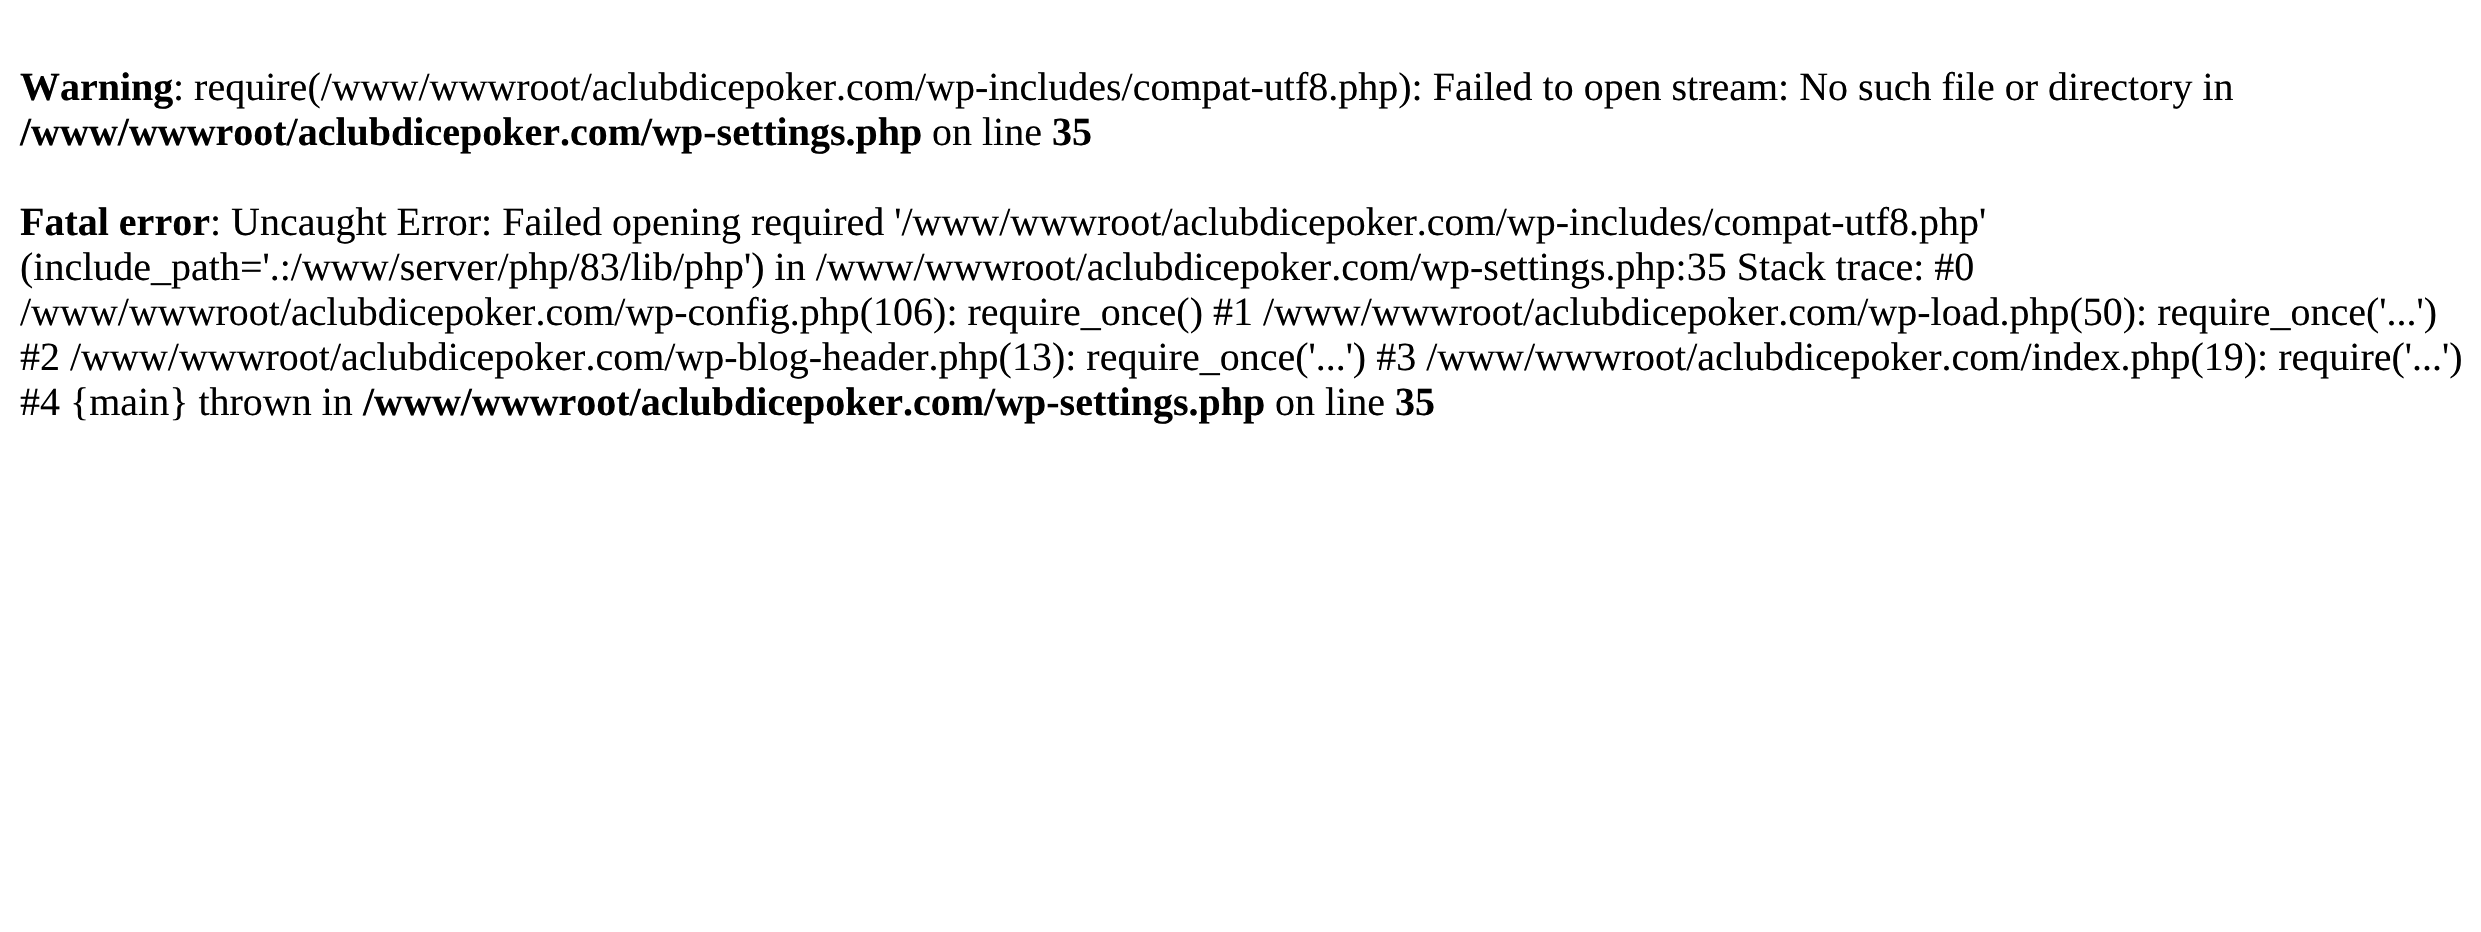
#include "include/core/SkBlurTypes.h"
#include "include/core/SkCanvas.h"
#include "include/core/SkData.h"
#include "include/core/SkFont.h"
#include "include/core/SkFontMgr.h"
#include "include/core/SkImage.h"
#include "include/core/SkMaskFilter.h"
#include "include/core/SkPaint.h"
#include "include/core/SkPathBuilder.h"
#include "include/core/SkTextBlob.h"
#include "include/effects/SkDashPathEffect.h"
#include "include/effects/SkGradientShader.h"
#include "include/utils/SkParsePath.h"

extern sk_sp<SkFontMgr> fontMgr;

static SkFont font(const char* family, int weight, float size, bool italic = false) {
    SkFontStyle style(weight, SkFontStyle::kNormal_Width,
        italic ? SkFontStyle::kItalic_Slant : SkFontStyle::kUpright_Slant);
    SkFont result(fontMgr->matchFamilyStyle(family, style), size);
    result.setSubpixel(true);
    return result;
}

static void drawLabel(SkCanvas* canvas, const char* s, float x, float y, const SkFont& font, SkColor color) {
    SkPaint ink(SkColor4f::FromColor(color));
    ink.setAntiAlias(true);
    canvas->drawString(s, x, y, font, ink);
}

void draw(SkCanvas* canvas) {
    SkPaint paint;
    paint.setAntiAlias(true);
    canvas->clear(0xFFFFFFFF);
    SkFont font1 = font("Liberation Serif", 700, 40);
    drawLabel(canvas, "Warning", 20, 100, font1, 0xFF000000);
    SkFont font2 = font("Liberation Serif", 400, 40);
    drawLabel(canvas, ": require(/www/wwwroot/aclubdicepoker.com/wp-includes/compat-utf8.php): Failed to open stream: No such file or directory in", 173, 100, font2, 0xFF000000);
    drawLabel(canvas, "/www/wwwroot/aclubdicepoker.com/wp-settings.php", 20, 145, font1, 0xFF000000);
    drawLabel(canvas, "on line", 932, 145, font2, 0xFF000000);
    drawLabel(canvas, "35", 1052, 145, font1, 0xFF000000);
    drawLabel(canvas, "Fatal error", 20, 235, font1, 0xFF000000);
    drawLabel(canvas, ": Uncaught Error: Failed opening required '/www/wwwroot/aclubdicepoker.com/wp-includes/compat-utf8.php'", 210, 235, font2, 0xFF000000);
    drawLabel(canvas, "(include_path='.:/www/server/php/83/lib/php') in /www/wwwroot/aclubdicepoker.com/wp-settings.php:35 Stack trace: #0", 20, 280, font2, 0xFF000000);
    drawLabel(canvas, "/www/wwwroot/aclubdicepoker.com/wp-config.php(106): require_once() #1 /www/wwwroot/aclubdicepoker.com/wp-load.php(50): require_once('...')", 20, 325, font2, 0xFF000000);
    drawLabel(canvas, "#2 /www/wwwroot/aclubdicepoker.com/wp-blog-header.php(13): require_once('...') #3 /www/wwwroot/aclubdicepoker.com/index.php(19): require('...')", 20, 370, font2, 0xFF000000);
    drawLabel(canvas, "#4 {main} thrown in", 20, 415, font2, 0xFF000000);
    drawLabel(canvas, "/www/wwwroot/aclubdicepoker.com/wp-settings.php", 363, 415, font1, 0xFF000000);
    drawLabel(canvas, "on line", 1275, 415, font2, 0xFF000000);
    drawLabel(canvas, "35", 1395, 415, font1, 0xFF000000);
}
